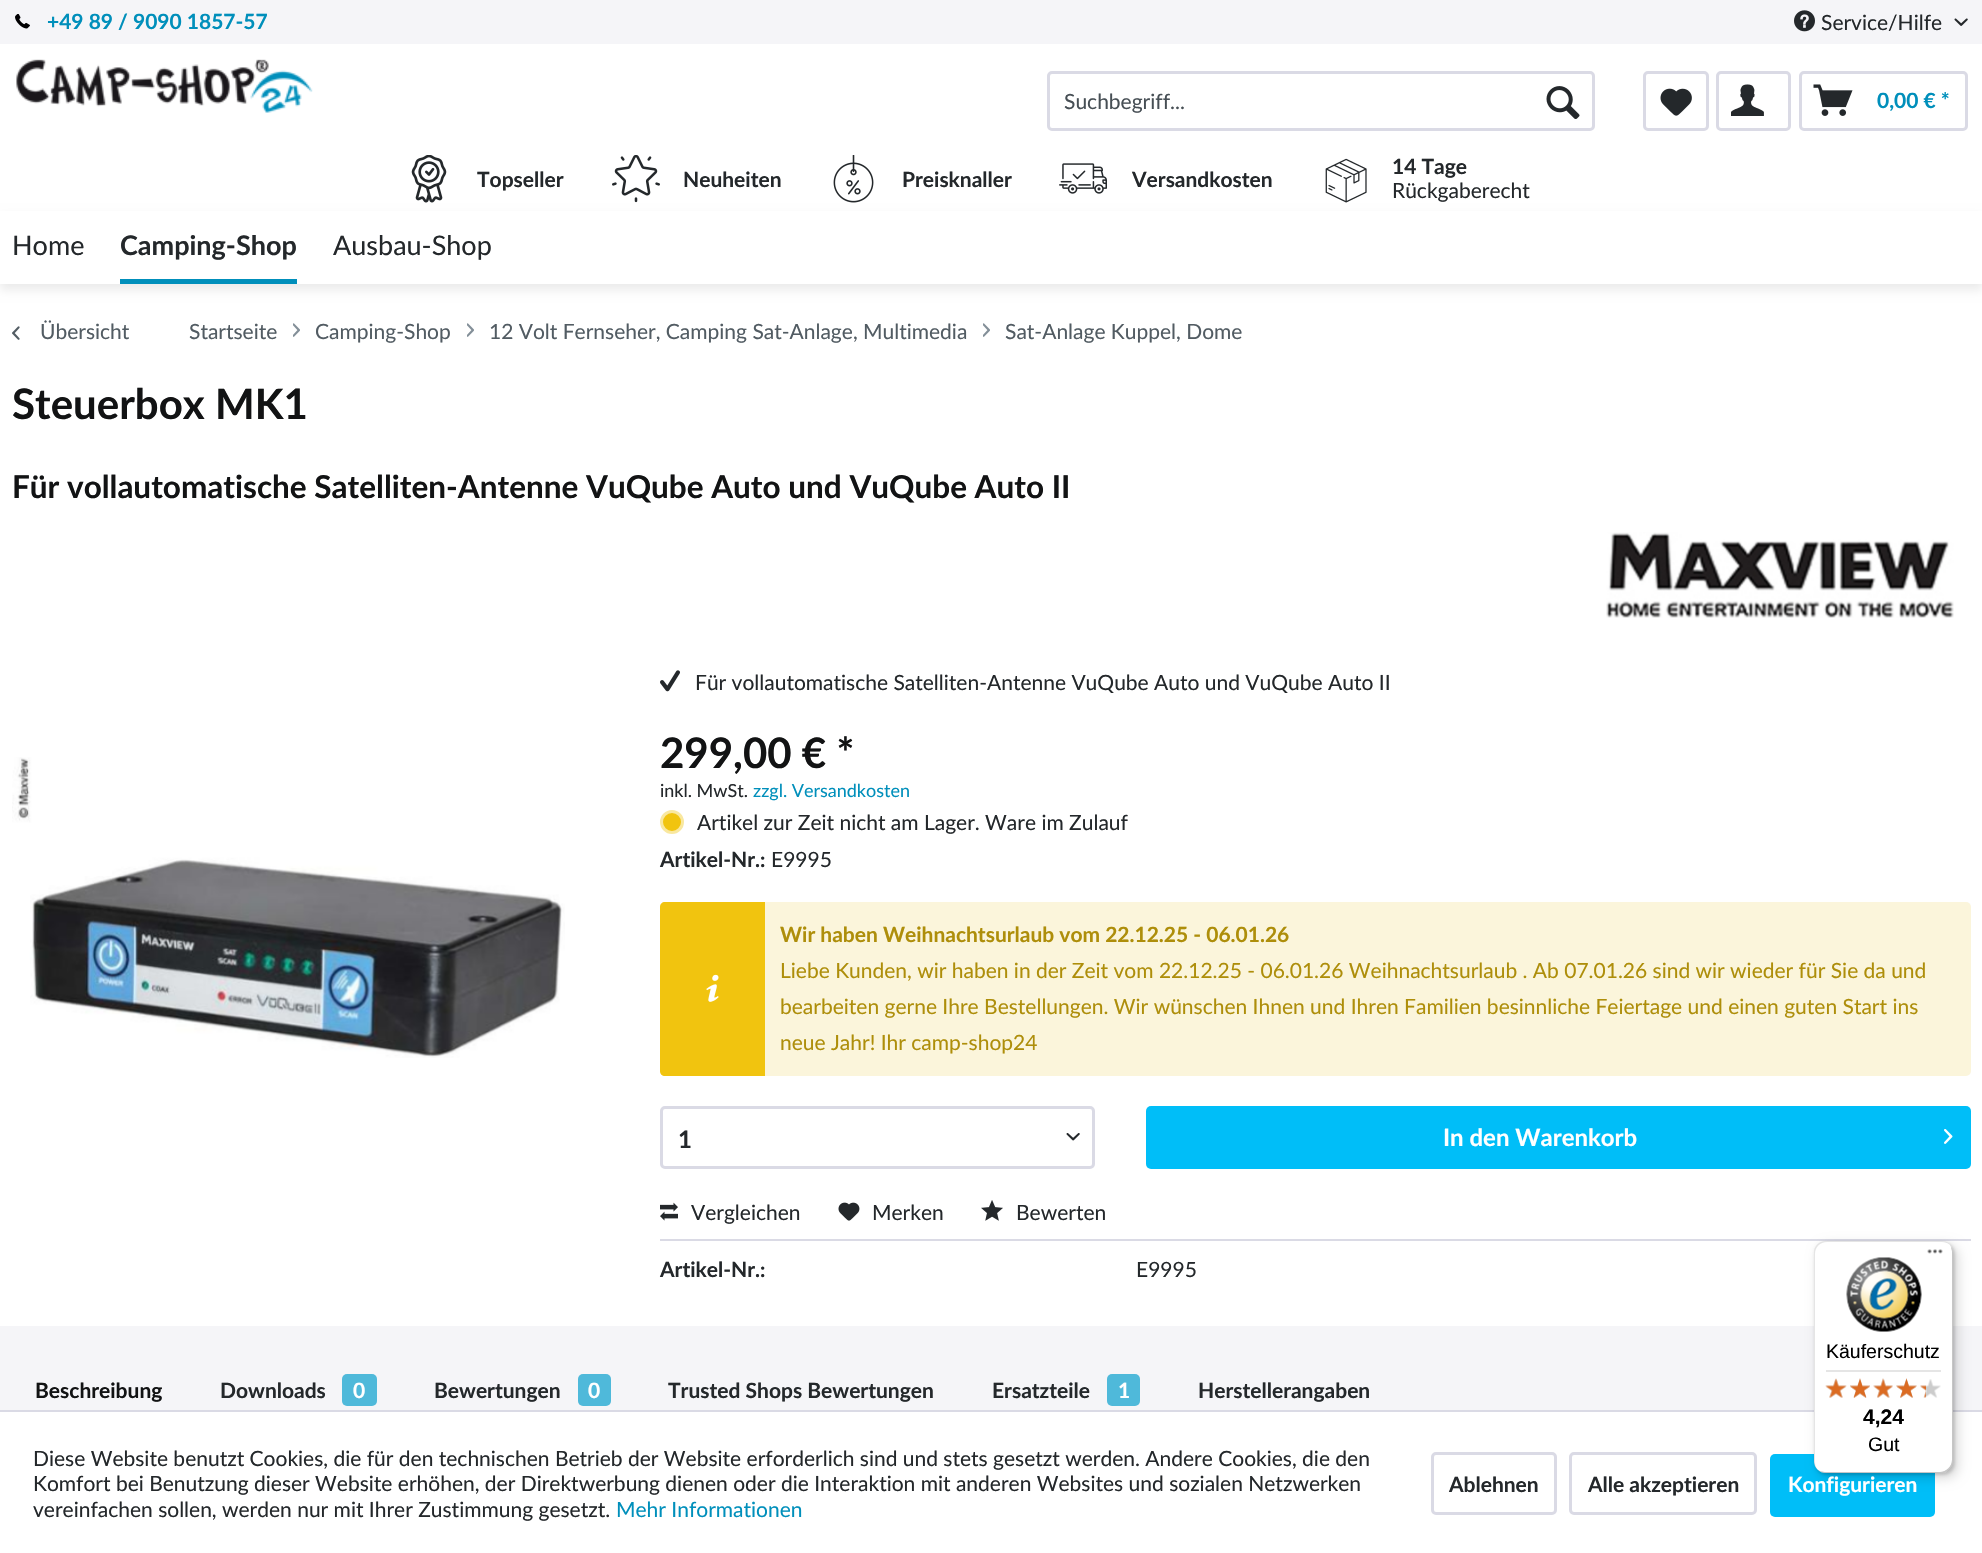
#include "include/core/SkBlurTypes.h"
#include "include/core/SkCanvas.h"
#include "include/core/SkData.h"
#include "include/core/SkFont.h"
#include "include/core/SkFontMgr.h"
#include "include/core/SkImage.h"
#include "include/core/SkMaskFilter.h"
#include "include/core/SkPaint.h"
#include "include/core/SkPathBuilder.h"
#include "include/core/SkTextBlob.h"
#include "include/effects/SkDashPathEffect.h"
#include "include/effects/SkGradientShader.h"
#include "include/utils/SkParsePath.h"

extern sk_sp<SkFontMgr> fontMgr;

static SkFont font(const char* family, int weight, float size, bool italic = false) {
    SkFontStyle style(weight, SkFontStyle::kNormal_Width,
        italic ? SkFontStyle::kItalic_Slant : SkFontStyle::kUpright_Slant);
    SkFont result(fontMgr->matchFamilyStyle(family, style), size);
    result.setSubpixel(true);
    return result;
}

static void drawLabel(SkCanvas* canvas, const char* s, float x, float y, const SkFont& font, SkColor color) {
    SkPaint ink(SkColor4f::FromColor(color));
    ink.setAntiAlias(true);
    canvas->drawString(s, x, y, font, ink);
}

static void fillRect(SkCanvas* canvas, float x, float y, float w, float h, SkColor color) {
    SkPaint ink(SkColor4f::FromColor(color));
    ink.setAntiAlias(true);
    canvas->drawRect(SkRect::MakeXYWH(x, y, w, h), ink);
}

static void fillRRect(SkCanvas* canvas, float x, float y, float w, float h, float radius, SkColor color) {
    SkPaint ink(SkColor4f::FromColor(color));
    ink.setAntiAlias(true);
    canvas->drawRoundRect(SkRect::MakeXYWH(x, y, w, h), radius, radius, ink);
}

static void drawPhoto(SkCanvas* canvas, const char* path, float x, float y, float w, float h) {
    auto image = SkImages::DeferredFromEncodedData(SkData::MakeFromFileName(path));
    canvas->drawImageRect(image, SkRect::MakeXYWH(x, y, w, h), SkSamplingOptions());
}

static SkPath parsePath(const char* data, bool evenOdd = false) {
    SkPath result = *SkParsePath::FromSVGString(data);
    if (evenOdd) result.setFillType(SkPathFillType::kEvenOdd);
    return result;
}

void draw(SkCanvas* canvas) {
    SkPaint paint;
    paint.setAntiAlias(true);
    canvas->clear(0xFFFFFFFF);
    fillRect(canvas, 0, 0, 1982, 44, 0xFFF5F5F8);
    drawPhoto(canvas, "assets/img1.png", 15, 14, 15, 15);
    SkFont font1 = font("Lato", 700, 21);
    drawLabel(canvas, "+49 89 / 9090 1857-57", 47, 29, font1, 0xFF008FBB);
    drawPhoto(canvas, "assets/img2.png", 1794, 10, 21, 22);
    SkFont font2 = font("Lato", 400, 21);
    drawLabel(canvas, "Service/Hilfe", 1821, 30, font2, 0xFF24282B);
    drawPhoto(canvas, "assets/img3.png", 1954, 18, 14, 8);
    drawPhoto(canvas, "assets/img4.png", 16, 59, 297, 54);
    paint.setStroke(true);
    paint.setStrokeWidth(3);
    paint.setColor(0xFFDADAE5);
    canvas->drawRoundRect(SkRect::MakeXYWH(1048.5f, 72.5f, 545, 57), 3.5f, 3.5f, paint);
    drawLabel(canvas, "Suchbegriff...", 1064, 109, font2, 0xFF474F55);
    drawPhoto(canvas, "assets/img5.png", 1546, 86, 34, 33);
    canvas->drawRoundRect(SkRect::MakeXYWH(1644.5f, 72.5f, 63, 57), 3.5f, 3.5f, paint);
    drawPhoto(canvas, "assets/img6.png", 1660, 88, 32, 28);
    canvas->drawRoundRect(SkRect::MakeXYWH(1717.5f, 72.5f, 72, 57), 3.5f, 3.5f, paint);
    drawPhoto(canvas, "assets/img7.png", 1731, 84, 33, 32);
    canvas->drawRoundRect(SkRect::MakeXYWH(1800.5f, 72.5f, 166, 57), 3.5f, 3.5f, paint);
    drawPhoto(canvas, "assets/img8.png", 1813, 84, 40, 32);
    drawLabel(canvas, "0,00 € *", 1877, 108, font1, 0xFF008FBB);
    drawPhoto(canvas, "assets/img9.png", 411, 155, 36, 48);
    drawLabel(canvas, "Topseller", 477, 187, font1, 0xFF24282B);
    drawPhoto(canvas, "assets/img10.png", 612, 155, 48, 48);
    drawLabel(canvas, "Neuheiten", 683, 187, font1, 0xFF24282B);
    drawPhoto(canvas, "assets/img11.png", 833, 155, 41, 48);
    drawLabel(canvas, "Preisknaller", 902, 187, font1, 0xFF24282B);
    drawPhoto(canvas, "assets/img12.png", 1059, 163, 48, 31);
    drawLabel(canvas, "Versandkosten", 1132, 187, font1, 0xFF24282B);
    drawPhoto(canvas, "assets/img13.png", 1325, 158, 42, 45);
    drawLabel(canvas, "14 Tage", 1392, 174, font1, 0xFF24282B);
    drawLabel(canvas, "Rückgaberecht", 1392, 198, font2, 0xFF24282B);
    paint.setStroke(false);
    paint.setColor(0x14000000);
    paint.setMaskFilter(SkMaskFilter::MakeBlur(kNormal_SkBlurStyle, 4.5f));
    canvas->drawRect(SkRect::MakeXYWH(0, 216, 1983, 74), paint);
    paint.setMaskFilter(nullptr);
    fillRect(canvas, 0, 211, 1982, 73, 0xFFFFFFFF);
    SkFont font3 = font("Lato", 400, 27);
    drawLabel(canvas, "Home", 12, 255, font3, 0xFF24282B);
    fillRect(canvas, 120, 279, 177, 5, 0xFF008FBB);
    SkFont font4 = font("Lato", 700, 27);
    drawLabel(canvas, "Camping-Shop", 120, 255, font4, 0xFF24282B);
    drawLabel(canvas, "Ausbau-Shop", 333, 255, font3, 0xFF24282B);
    drawPhoto(canvas, "assets/img14.png", 12, 326, 8, 14);
    drawLabel(canvas, "Übersicht", 40, 339, font2, 0xFF525C63);
    drawLabel(canvas, "Startseite", 189, 339, font2, 0xFF525C63);
    drawPhoto(canvas, "assets/img15.png", 293, 323, 7, 14);
    drawLabel(canvas, "Camping-Shop", 315, 339, font2, 0xFF525C63);
    drawPhoto(canvas, "assets/img15.png", 467, 323, 7, 14);
    drawLabel(canvas, "12 Volt Fernseher, Camping Sat-Anlage, Multimedia", 489, 339, font2, 0xFF525C63);
    drawPhoto(canvas, "assets/img15.png", 983, 323, 7, 14);
    drawLabel(canvas, "Sat-Anlage Kuppel, Dome", 1005, 339, font2, 0xFF525C63);
    SkFont font5 = font("Lato", 700, 42);
    drawLabel(canvas, "Steuerbox MK1", 12, 419, font5, 0xFF121314);
    SkFont font6 = font("Lato", 700, 31.5f);
    drawLabel(canvas, "Für vollautomatische Satelliten-Antenne VuQube Auto und VuQube Auto II", 12, 498, font6, 0xFF121314);
    drawPhoto(canvas, "assets/img16.png", 1606, 532, 348, 86);
    drawPhoto(canvas, "assets/img17.png", 12, 757, 553, 301);
    drawPhoto(canvas, "assets/img18.png", 660, 670, 20, 22);
    drawLabel(canvas, "Für vollautomatische Satelliten-Antenne VuQube Auto und VuQube Auto II", 695, 690, font2, 0xFF24282B);
    drawLabel(canvas, "299,00 € *", 660, 768, font5, 0xFF121314);
    SkFont font7 = font("Lato", 400, 18);
    drawLabel(canvas, "inkl. MwSt.", 660, 797, font7, 0xFF24282B);
    drawLabel(canvas, "zzgl. Versandkosten", 753, 797, font7, 0xFF008FBB);
    paint.setColor(0xFFF1C40F);
    canvas->drawCircle(672, 822, 10.5f, paint);
    paint.setStroke(true);
    paint.setColor(0xFFF9E8A0);
    canvas->drawCircle(672, 822, 10.5f, paint);
    drawLabel(canvas, "Artikel zur Zeit nicht am Lager. Ware im Zulauf", 697, 830, font2, 0xFF24282B);
    drawLabel(canvas, "Artikel-Nr.:", 660, 867, font1, 0xFF24282B);
    drawLabel(canvas, "E9995", 771, 867, font2, 0xFF24282B);
    fillRRect(canvas, 660, 902, 1311, 174, 5, 0xFFFBF5DB);
    paint.setStroke(false);
    paint.setColor(0xFFF1C40F);
    canvas->drawPath(parsePath("M665 902H765V1076H665C662 1076 660 1074 660 1071V907C660 904 662 902 665 902Z"), paint);
    drawPhoto(canvas, "assets/img19.png", 706, 974, 13, 28);
    drawLabel(canvas, "Wir haben Weihnachtsurlaub vom 22.12.25 - 06.01.26", 780, 942, font1, 0xFFAE8E0A);
    drawLabel(canvas, "Liebe Kunden, wir haben in der Zeit vom 22.12.25 - 06.01.26 Weihnachtsurlaub . Ab 07.01.26 sind wir wieder für Sie da und", 780, 978, font2, 0xFFAE8E0A);
    drawLabel(canvas, "bearbeiten gerne Ihre Bestellungen. Wir wünschen Ihnen und Ihren Familien besinnliche Feiertage und einen guten Start ins", 780, 1014, font2, 0xFFAE8E0A);
    drawLabel(canvas, "neue Jahr! Ihr camp-shop24", 780, 1050, font2, 0xFFAE8E0A);
    paint.setStroke(true);
    paint.setColor(0xFFDADAE5);
    canvas->drawRoundRect(SkRect::MakeXYWH(661.5f, 1107.5f, 432, 60), 3.5f, 3.5f, paint);
    SkFont font8 = font("Lato", 700, 24);
    drawLabel(canvas, "1", 678, 1148, font8, 0xFF24282B);
    drawPhoto(canvas, "assets/img20.png", 1066, 1133, 14, 8);
    fillRRect(canvas, 1146, 1106, 825, 63, 5, 0xFF00BEF8);
    drawLabel(canvas, "In den Warenkorb", 1443, 1146, font8, 0xFFFFFFFF);
    drawPhoto(canvas, "assets/img21.png", 1944, 1129, 9, 15);
    fillRect(canvas, 660, 1239, 1311, 2, 0xFFDADAE5);
    drawPhoto(canvas, "assets/img22.png", 660, 1202, 18, 19);
    drawLabel(canvas, "Vergleichen", 691, 1220, font2, 0xFF24282B);
    drawPhoto(canvas, "assets/img23.png", 838, 1202, 22, 19);
    drawLabel(canvas, "Merken", 872, 1220, font2, 0xFF24282B);
    drawPhoto(canvas, "assets/img24.png", 981, 1200, 22, 21);
    drawLabel(canvas, "Bewerten", 1016, 1220, font2, 0xFF24282B);
    drawLabel(canvas, "Artikel-Nr.:", 660, 1277, font1, 0xFF24282B);
    drawLabel(canvas, "E9995", 1136, 1277, font2, 0xFF24282B);
    fillRect(canvas, 0, 1326, 1982, 84, 0xFFF5F5F8);
    drawLabel(canvas, "Beschreibung", 35, 1398, font1, 0xFF121314);
    drawLabel(canvas, "Downloads", 220, 1398, font1, 0xFF24282B);
    fillRRect(canvas, 342, 1374, 35, 32, 5, 0xFF4FB9DA);
    drawLabel(canvas, "0", 353, 1398, font1, 0xFFFFFFFF);
    drawLabel(canvas, "Bewertungen", 434, 1398, font1, 0xFF24282B);
    fillRRect(canvas, 578, 1374, 33, 32, 5, 0xFF4FB9DA);
    drawLabel(canvas, "0", 588, 1398, font1, 0xFFFFFFFF);
    drawLabel(canvas, "Trusted Shops Bewertungen", 668, 1398, font1, 0xFF24282B);
    drawLabel(canvas, "Ersatzteile", 992, 1398, font1, 0xFF24282B);
    fillRRect(canvas, 1107, 1374, 33, 32, 5, 0xFF4FB9DA);
    drawLabel(canvas, "1", 1118, 1398, font1, 0xFFFFFFFF);
    drawLabel(canvas, "Herstellerangaben", 1198, 1398, font1, 0xFF24282B);
    fillRect(canvas, 0, 1410, 1982, 2, 0xFFDADAE5);
    fillRRect(canvas, 1770, 1454, 165, 63, 5, 0xFF00BEF8);
    paint.setStroke(false);
    paint.setColor(0x26000000);
    paint.setMaskFilter(SkMaskFilter::MakeBlur(kNormal_SkBlurStyle, 6));
    canvas->drawRoundRect(SkRect::MakeXYWH(1818, 1245, 140, 233), 12, 12, paint);
    paint.setMaskFilter(nullptr);
    paint.setMaskFilter(SkMaskFilter::MakeBlur(kNormal_SkBlurStyle, 1.5f));
    canvas->drawRoundRect(SkRect::MakeXYWH(1815, 1242, 140, 233), 12, 12, paint);
    paint.setMaskFilter(nullptr);
    fillRRect(canvas, 1814, 1241, 139, 232, 12, 0xFFFFFFFF);
    paint.setColor(0x1A000000);
    canvas->drawPath(parsePath("M1827 1242H1942C1945 1242 1947 1243 1949 1244C1947 1242 1944 1241 1941 1241H1826C1819 1241 1814 1246 1814 1253V1461C1814 1464 1815 1467 1817 1469C1816 1467 1815 1465 1815 1462V1254C1815 1247 1820 1242 1827 1242Z"), paint);
    paint.setColor(0x33000000);
    canvas->drawPath(parsePath("M1820 1471C1821 1472 1824 1473 1826 1473H1941C1948 1473 1953 1468 1953 1461V1253C1953 1251 1952 1248 1951 1247L1952 1251V1460C1952 1466 1946 1472 1940 1472H1824Z"), paint);
    paint.setColor(0x33323232);
    canvas->drawPath(parsePath("M1818 1470C1820 1472 1823 1473 1826 1473H1941C1948 1473 1953 1468 1953 1461V1253C1953 1250 1952 1247 1950 1245C1951 1247 1952 1249 1952 1252V1460C1952 1467 1947 1472 1940 1472H1825C1822 1472 1820 1471 1818 1470Z"), paint);
    paint.setColor(0x4DFFFFFF);
    canvas->drawPath(parsePath("M1818 1470C1820 1472 1823 1473 1826 1473H1941C1948 1473 1953 1468 1953 1461V1253C1953 1250 1952 1247 1950 1245C1951 1247 1952 1249 1952 1252V1460C1952 1467 1947 1472 1940 1472H1825C1822 1472 1820 1471 1818 1470Z"), paint);
    drawPhoto(canvas, "assets/img25.png", 1927, 1249, 16, 5);
    drawPhoto(canvas, "assets/img26.png", 1846, 1257, 76, 75);
    SkFont font9 = font("Liberation Sans", 400, 19.5f);
    drawLabel(canvas, "Käuferschutz", 1826, 1358, font9, 0xFF000000);
    fillRect(canvas, 1826, 1370, 115, 2, 0xFFE5E5E5);
    drawPhoto(canvas, "assets/img32.png", 1826, 1379, 20, 19);
    drawPhoto(canvas, "assets/img27.png", 1825, 1378, 22, 20);
    drawPhoto(canvas, "assets/img33.png", 1850, 1378, 20, 20);
    drawPhoto(canvas, "assets/img28.png", 1850, 1378, 20, 20);
    drawPhoto(canvas, "assets/img34.png", 1873, 1378, 20, 20);
    drawPhoto(canvas, "assets/img29.png", 1873, 1378, 20, 20);
    drawPhoto(canvas, "assets/img35.png", 1896, 1378, 21, 20);
    drawPhoto(canvas, "assets/img30.png", 1896, 1378, 21, 20);
    drawPhoto(canvas, "assets/img36.png", 1920, 1379, 21, 19);
    drawPhoto(canvas, "assets/img31.png", 1920, 1385, 6, 13);
    SkFont font10 = font("Liberation Sans", 700, 21);
    drawLabel(canvas, "4,24", 1863, 1424, font10, 0xFF000000);
    drawLabel(canvas, "Gut", 1868, 1451, font9, 0xFF000000);
    drawLabel(canvas, "Diese Website benutzt Cookies, die für den technischen Betrieb der Website erforderlich sind und stets gesetzt werden. Andere Cookies, die den", 33, 1466, font2, 0xFF24282B);
    drawLabel(canvas, "Komfort bei Benutzung dieser Website erhöhen, der Direktwerbung dienen oder die Interaktion mit anderen Websites und sozialen Netzwerken", 33, 1491, font2, 0xFF24282B);
    drawLabel(canvas, "vereinfachen sollen, werden nur mit Ihrer Zustimmung gesetzt.", 33, 1517, font2, 0xFF24282B);
    drawLabel(canvas, "Mehr Informationen", 616, 1517, font2, 0xFF008FBB);
    paint.setStroke(true);
    paint.setColor(0xFFDADAE5);
    canvas->drawRoundRect(SkRect::MakeXYWH(1432.5f, 1453.5f, 123, 60), 3.5f, 3.5f, paint);
    drawLabel(canvas, "Ablehnen", 1449, 1492, font1, 0xFF24282B);
    canvas->drawRoundRect(SkRect::MakeXYWH(1570.5f, 1453.5f, 185, 60), 3.5f, 3.5f, paint);
    drawLabel(canvas, "Alle akzeptieren", 1588, 1492, font1, 0xFF24282B);
    drawLabel(canvas, "Konfigurieren", 1788, 1492, font1, 0xFFFFFFFF);
}
